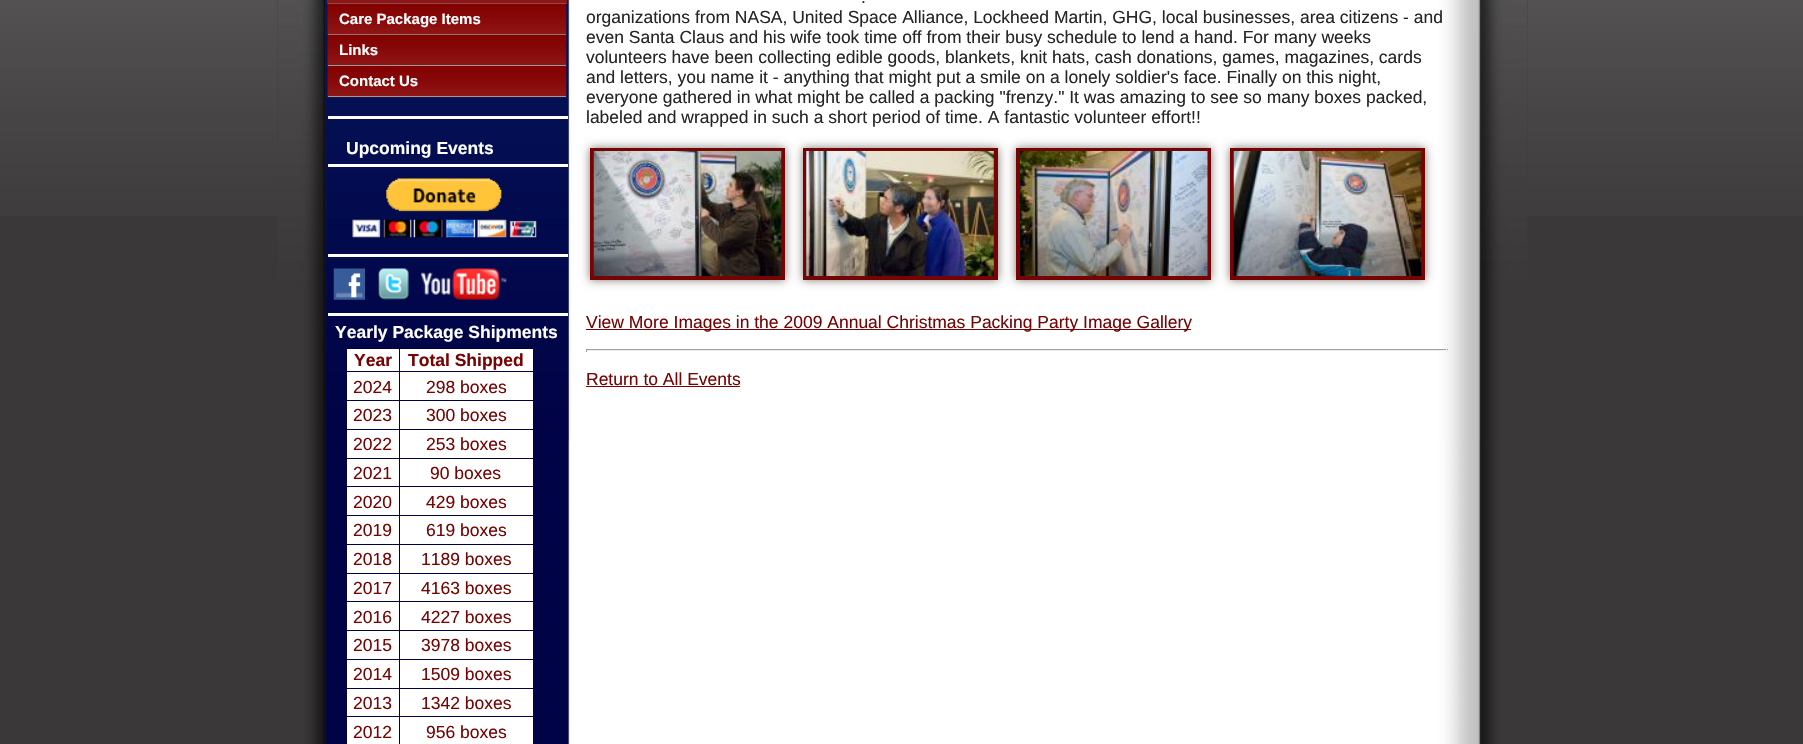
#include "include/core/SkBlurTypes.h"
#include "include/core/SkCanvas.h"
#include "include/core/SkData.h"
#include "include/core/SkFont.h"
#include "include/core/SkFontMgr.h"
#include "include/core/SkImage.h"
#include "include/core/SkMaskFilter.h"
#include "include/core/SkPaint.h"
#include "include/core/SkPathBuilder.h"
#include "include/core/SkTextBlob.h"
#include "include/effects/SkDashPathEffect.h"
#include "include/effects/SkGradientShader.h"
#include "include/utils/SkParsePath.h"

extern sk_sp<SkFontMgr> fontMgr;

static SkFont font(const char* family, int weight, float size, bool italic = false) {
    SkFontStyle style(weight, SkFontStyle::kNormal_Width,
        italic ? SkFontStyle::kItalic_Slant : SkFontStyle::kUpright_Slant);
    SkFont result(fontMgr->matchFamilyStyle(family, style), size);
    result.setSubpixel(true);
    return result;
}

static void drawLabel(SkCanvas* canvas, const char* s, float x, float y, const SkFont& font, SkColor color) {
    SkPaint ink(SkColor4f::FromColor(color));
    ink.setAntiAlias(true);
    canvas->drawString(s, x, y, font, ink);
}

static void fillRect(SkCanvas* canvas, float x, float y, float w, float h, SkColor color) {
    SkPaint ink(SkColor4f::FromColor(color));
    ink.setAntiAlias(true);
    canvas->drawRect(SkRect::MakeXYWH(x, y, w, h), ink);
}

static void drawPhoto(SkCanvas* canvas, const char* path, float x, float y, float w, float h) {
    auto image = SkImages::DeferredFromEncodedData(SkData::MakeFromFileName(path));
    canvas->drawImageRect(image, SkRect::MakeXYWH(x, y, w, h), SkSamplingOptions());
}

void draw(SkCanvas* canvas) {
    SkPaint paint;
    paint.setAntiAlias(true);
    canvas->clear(0xFF3A3839);
    drawPhoto(canvas, "assets/img1.png", 0, 0, 1803, 216);
    drawPhoto(canvas, "assets/img2.png", 277, 0, 1251, 744);
    drawPhoto(canvas, "assets/img10.png", 277, 0, 1251, 441);
    fillRect(canvas, 327, 0, 240, 4, 0xFF8F1616);
    fillRect(canvas, 328, 3, 238, 1, 0xFF999999);
    drawPhoto(canvas, "assets/img3.png", 327, 3, 240, 32);
    fillRect(canvas, 328, 34, 238, 1, 0xFF999999);
    SkFont font1 = font("Liberation Sans", 700, 15);
    drawLabel(canvas, "Care Package Items", 339, 24, font1, 0xFFFFFFFF);
    drawPhoto(canvas, "assets/img4.png", 327, 34, 240, 32);
    fillRect(canvas, 328, 65, 238, 1, 0xFF999999);
    drawLabel(canvas, "Links", 339, 55, font1, 0xFFFFFFFF);
    drawPhoto(canvas, "assets/img5.png", 327, 66, 240, 32);
    fillRect(canvas, 328, 96, 238, 1, 0xFF999999);
    drawLabel(canvas, "Contact Us", 339, 86, font1, 0xFFFFFFFF);
    fillRect(canvas, 328, 116, 240, 3, 0xFFFFFFFF);
    SkFont font2 = font("Liberation Sans", 700, 17.5f);
    drawLabel(canvas, "Upcoming Events", 346, 154, font2, 0xFFFFFFFF);
    fillRect(canvas, 328, 164, 240, 3, 0xFFFFFFFF);
    drawPhoto(canvas, "assets/img6.png", 352, 178, 185, 60);
    fillRect(canvas, 328, 254, 240, 3, 0xFFFFFFFF);
    drawPhoto(canvas, "assets/img7.png", 333, 268, 32, 32);
    drawPhoto(canvas, "assets/img8.png", 377, 268, 32, 32);
    drawPhoto(canvas, "assets/img9.png", 421, 268, 86, 32);
    fillRect(canvas, 328, 313, 240, 3, 0xFFFFFFFF);
    drawLabel(canvas, "Yearly Package Shipments", 335, 338, font2, 0xFFFFFFFF);
    fillRect(canvas, 347, 349, 186, 395, 0xFFFFFFFF);
    fillRect(canvas, 399, 348, 135, 1, 0xFF000144);
    fillRect(canvas, 399, 371, 135, 1, 0xFF000144);
    fillRect(canvas, 399, 400, 135, 1, 0xFF000144);
    fillRect(canvas, 399, 429, 135, 1, 0xFF000144);
    fillRect(canvas, 399, 458, 135, 1, 0xFF000144);
    fillRect(canvas, 399, 486, 135, 1, 0xFF000144);
    fillRect(canvas, 399, 515, 135, 1, 0xFF000144);
    fillRect(canvas, 399, 544, 135, 1, 0xFF000144);
    fillRect(canvas, 399, 573, 135, 1, 0xFF000144);
    fillRect(canvas, 399, 601, 135, 1, 0xFF000144);
    fillRect(canvas, 399, 630, 135, 1, 0xFF000144);
    fillRect(canvas, 399, 659, 135, 1, 0xFF000144);
    fillRect(canvas, 399, 688, 135, 1, 0xFF000144);
    fillRect(canvas, 399, 716, 135, 1, 0xFF000144);
    fillRect(canvas, 399, 716, 1, 28, 0xFF000144);
    fillRect(canvas, 346, 716, 54, 1, 0xFF000144);
    fillRect(canvas, 399, 688, 1, 30, 0xFF000144);
    fillRect(canvas, 346, 688, 54, 1, 0xFF000144);
    fillRect(canvas, 399, 659, 1, 30, 0xFF000144);
    fillRect(canvas, 346, 659, 54, 1, 0xFF000144);
    fillRect(canvas, 399, 630, 1, 30, 0xFF000144);
    fillRect(canvas, 346, 630, 54, 1, 0xFF000144);
    fillRect(canvas, 399, 601, 1, 30, 0xFF000144);
    fillRect(canvas, 346, 601, 54, 1, 0xFF000144);
    fillRect(canvas, 399, 573, 1, 30, 0xFF000144);
    fillRect(canvas, 346, 573, 54, 1, 0xFF000144);
    fillRect(canvas, 399, 544, 1, 30, 0xFF000144);
    fillRect(canvas, 346, 544, 54, 1, 0xFF000144);
    fillRect(canvas, 399, 515, 1, 30, 0xFF000144);
    fillRect(canvas, 346, 515, 54, 1, 0xFF000144);
    fillRect(canvas, 399, 486, 1, 30, 0xFF000144);
    fillRect(canvas, 346, 486, 54, 1, 0xFF000144);
    fillRect(canvas, 399, 458, 1, 30, 0xFF000144);
    fillRect(canvas, 346, 458, 54, 1, 0xFF000144);
    fillRect(canvas, 399, 429, 1, 30, 0xFF000144);
    fillRect(canvas, 346, 429, 54, 1, 0xFF000144);
    fillRect(canvas, 399, 400, 1, 30, 0xFF000144);
    fillRect(canvas, 346, 400, 54, 1, 0xFF000144);
    fillRect(canvas, 399, 371, 1, 30, 0xFF000144);
    fillRect(canvas, 346, 371, 54, 1, 0xFF000144);
    fillRect(canvas, 399, 348, 1, 25, 0xFF000144);
    fillRect(canvas, 346, 348, 54, 1, 0xFF000144);
    fillRect(canvas, 346, 400, 1, 12, 0xFF000144);
    fillRect(canvas, 346, 371, 1, 30, 0xFF000144);
    fillRect(canvas, 346, 348, 1, 25, 0xFF000144);
    drawLabel(canvas, "Year", 354, 366, font2, 0xFF760404);
    fillRect(canvas, 533, 400, 1, 12, 0xFF000144);
    fillRect(canvas, 533, 371, 1, 30, 0xFF000144);
    fillRect(canvas, 533, 348, 1, 25, 0xFF000144);
    drawLabel(canvas, "Total Shipped", 408, 366, font2, 0xFF760404);
    SkFont font3 = font("Liberation Sans", 400, 17.5f);
    drawLabel(canvas, "2024", 353, 393, font3, 0xFF760404);
    drawLabel(canvas, "298 boxes", 426, 393, font3, 0xFF760404);
    drawLabel(canvas, "2023", 353, 421, font3, 0xFF760404);
    drawLabel(canvas, "300 boxes", 426, 421, font3, 0xFF760404);
    drawLabel(canvas, "2022", 353, 450, font3, 0xFF760404);
    drawLabel(canvas, "253 boxes", 426, 450, font3, 0xFF760404);
    drawLabel(canvas, "2021", 353, 479, font3, 0xFF760404);
    drawLabel(canvas, "90 boxes", 430, 479, font3, 0xFF760404);
    drawLabel(canvas, "2020", 353, 508, font3, 0xFF760404);
    drawLabel(canvas, "429 boxes", 426, 508, font3, 0xFF760404);
    drawLabel(canvas, "2019", 353, 536, font3, 0xFF760404);
    drawLabel(canvas, "619 boxes", 426, 536, font3, 0xFF760404);
    drawLabel(canvas, "2018", 353, 565, font3, 0xFF760404);
    drawLabel(canvas, "1189 boxes", 421, 565, font3, 0xFF760404);
    drawLabel(canvas, "2017", 353, 594, font3, 0xFF760404);
    drawLabel(canvas, "4163 boxes", 421, 594, font3, 0xFF760404);
    drawLabel(canvas, "2016", 353, 623, font3, 0xFF760404);
    drawLabel(canvas, "4227 boxes", 421, 623, font3, 0xFF760404);
    drawLabel(canvas, "2015", 353, 651, font3, 0xFF760404);
    drawLabel(canvas, "3978 boxes", 421, 651, font3, 0xFF760404);
    drawLabel(canvas, "2014", 353, 680, font3, 0xFF760404);
    drawLabel(canvas, "1509 boxes", 421, 680, font3, 0xFF760404);
    drawLabel(canvas, "2013", 353, 709, font3, 0xFF760404);
    drawLabel(canvas, "1342 boxes", 421, 709, font3, 0xFF760404);
    drawLabel(canvas, "2012", 353, 738, font3, 0xFF760404);
    drawLabel(canvas, "956 boxes", 426, 738, font3, 0xFF760404);
    drawLabel(canvas, ".", 861, 3, font3, 0xFF252525);
    drawLabel(canvas, "organizations from NASA, United Space Alliance, Lockheed Martin, GHG, local businesses, area citizens - and", 586, 23, font3, 0xFF252525);
    drawLabel(canvas, "even Santa Claus and his wife took time off from their busy schedule to lend a hand. For many weeks", 586, 43, font3, 0xFF252525);
    drawLabel(canvas, "volunteers have been collecting edible goods, blankets, knit hats, cash donations, games, magazines, cards", 586, 63, font3, 0xFF252525);
    drawLabel(canvas, "and letters, you name it - anything that might put a smile on a lonely soldier's face. Finally on this night,", 586, 83, font3, 0xFF252525);
    drawLabel(canvas, "everyone gathered in what might be called a packing \"frenzy.\" It was amazing to see so many boxes packed,", 586, 103, font3, 0xFF252525);
    drawLabel(canvas, "labeled and wrapped in such a short period of time. A fantastic volunteer effort!!", 586, 123, font3, 0xFF252525);
    paint.setColor(0xFF807A72);
    paint.setMaskFilter(SkMaskFilter::MakeBlur(kNormal_SkBlurStyle, 4.5f));
    canvas->drawRect(SkRect::MakeXYWH(590, 148, 195, 132), paint);
    paint.setMaskFilter(nullptr);
    paint.setMaskFilter(SkMaskFilter::MakeBlur(kNormal_SkBlurStyle, 4.5f));
    canvas->drawRect(SkRect::MakeXYWH(803, 148, 195, 132), paint);
    paint.setMaskFilter(nullptr);
    paint.setMaskFilter(SkMaskFilter::MakeBlur(kNormal_SkBlurStyle, 4.5f));
    canvas->drawRect(SkRect::MakeXYWH(1016, 148, 195, 132), paint);
    paint.setMaskFilter(nullptr);
    paint.setMaskFilter(SkMaskFilter::MakeBlur(kNormal_SkBlurStyle, 4.5f));
    canvas->drawRect(SkRect::MakeXYWH(1230, 148, 195, 132), paint);
    paint.setMaskFilter(nullptr);
    fillRect(canvas, 590, 148, 195, 132, 0xFF760404);
    fillRect(canvas, 803, 148, 195, 132, 0xFF760404);
    fillRect(canvas, 1016, 148, 195, 132, 0xFF760404);
    fillRect(canvas, 1230, 148, 195, 132, 0xFF760404);
    drawPhoto(canvas, "assets/img11.png", 593, 151, 189, 125);
    drawPhoto(canvas, "assets/img12.png", 806, 151, 188, 125);
    drawPhoto(canvas, "assets/img13.png", 1020, 151, 188, 125);
    drawPhoto(canvas, "assets/img14.png", 1233, 151, 189, 125);
    fillRect(canvas, 586, 329, 605, 1, 0xFF760404);
    drawLabel(canvas, "View More Images in the 2009 Annual Christmas Packing Party Image Gallery", 586, 328, font3, 0xFF760404);
    fillRect(canvas, 586, 349, 862, 1, 0xFF9F9F9F);
    fillRect(canvas, 1446, 349, 1, 3, 0xFFEEEEEE);
    fillRect(canvas, 586, 350, 862, 1, 0xFFEEEEEE);
    fillRect(canvas, 586, 349, 1, 3, 0xFF9F9F9F);
    drawLabel(canvas, "Return to All Events", 586, 385, font3, 0xFF760404);
    fillRect(canvas, 586, 386, 154, 1, 0xFF760404);
}
